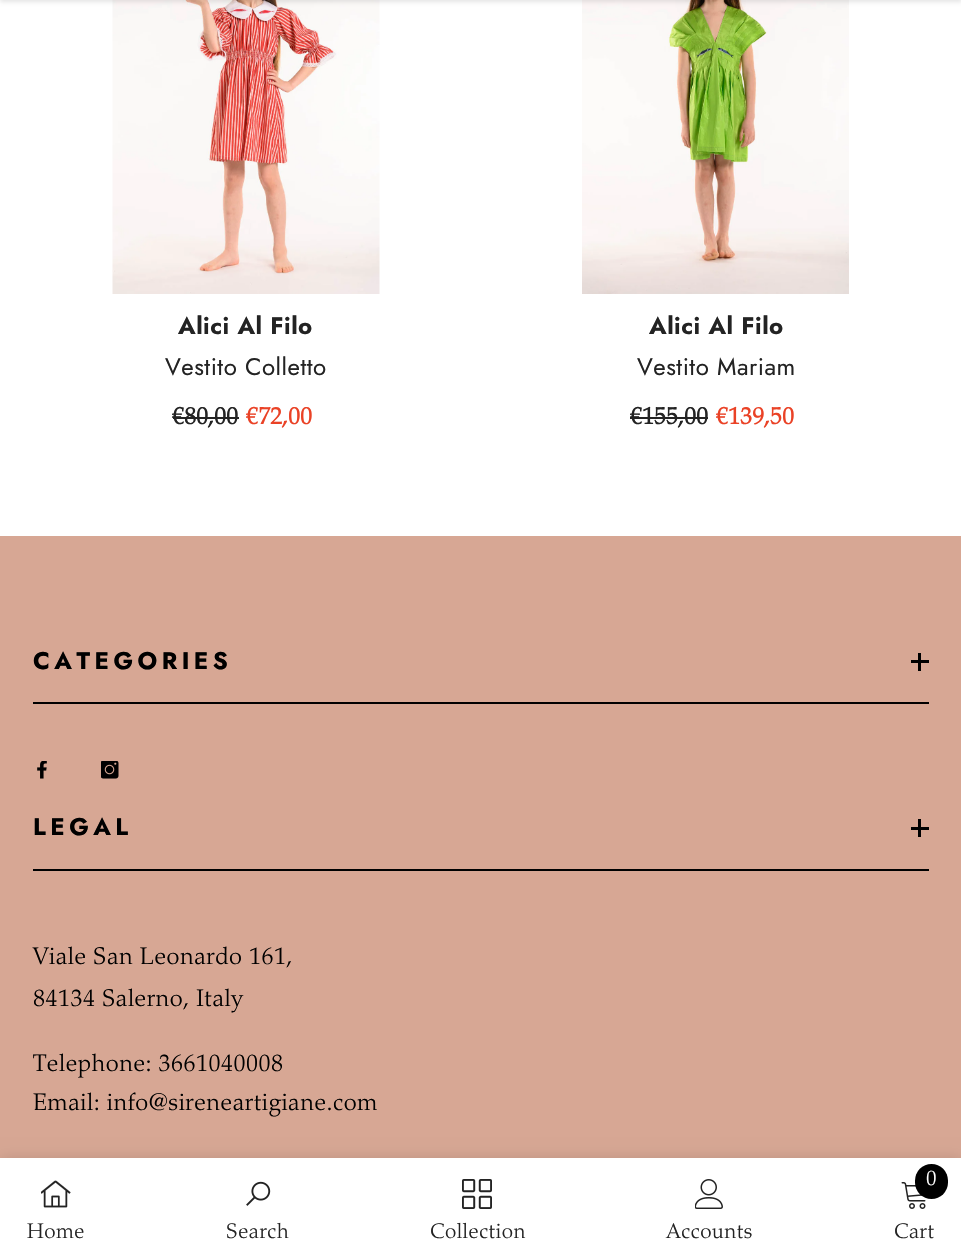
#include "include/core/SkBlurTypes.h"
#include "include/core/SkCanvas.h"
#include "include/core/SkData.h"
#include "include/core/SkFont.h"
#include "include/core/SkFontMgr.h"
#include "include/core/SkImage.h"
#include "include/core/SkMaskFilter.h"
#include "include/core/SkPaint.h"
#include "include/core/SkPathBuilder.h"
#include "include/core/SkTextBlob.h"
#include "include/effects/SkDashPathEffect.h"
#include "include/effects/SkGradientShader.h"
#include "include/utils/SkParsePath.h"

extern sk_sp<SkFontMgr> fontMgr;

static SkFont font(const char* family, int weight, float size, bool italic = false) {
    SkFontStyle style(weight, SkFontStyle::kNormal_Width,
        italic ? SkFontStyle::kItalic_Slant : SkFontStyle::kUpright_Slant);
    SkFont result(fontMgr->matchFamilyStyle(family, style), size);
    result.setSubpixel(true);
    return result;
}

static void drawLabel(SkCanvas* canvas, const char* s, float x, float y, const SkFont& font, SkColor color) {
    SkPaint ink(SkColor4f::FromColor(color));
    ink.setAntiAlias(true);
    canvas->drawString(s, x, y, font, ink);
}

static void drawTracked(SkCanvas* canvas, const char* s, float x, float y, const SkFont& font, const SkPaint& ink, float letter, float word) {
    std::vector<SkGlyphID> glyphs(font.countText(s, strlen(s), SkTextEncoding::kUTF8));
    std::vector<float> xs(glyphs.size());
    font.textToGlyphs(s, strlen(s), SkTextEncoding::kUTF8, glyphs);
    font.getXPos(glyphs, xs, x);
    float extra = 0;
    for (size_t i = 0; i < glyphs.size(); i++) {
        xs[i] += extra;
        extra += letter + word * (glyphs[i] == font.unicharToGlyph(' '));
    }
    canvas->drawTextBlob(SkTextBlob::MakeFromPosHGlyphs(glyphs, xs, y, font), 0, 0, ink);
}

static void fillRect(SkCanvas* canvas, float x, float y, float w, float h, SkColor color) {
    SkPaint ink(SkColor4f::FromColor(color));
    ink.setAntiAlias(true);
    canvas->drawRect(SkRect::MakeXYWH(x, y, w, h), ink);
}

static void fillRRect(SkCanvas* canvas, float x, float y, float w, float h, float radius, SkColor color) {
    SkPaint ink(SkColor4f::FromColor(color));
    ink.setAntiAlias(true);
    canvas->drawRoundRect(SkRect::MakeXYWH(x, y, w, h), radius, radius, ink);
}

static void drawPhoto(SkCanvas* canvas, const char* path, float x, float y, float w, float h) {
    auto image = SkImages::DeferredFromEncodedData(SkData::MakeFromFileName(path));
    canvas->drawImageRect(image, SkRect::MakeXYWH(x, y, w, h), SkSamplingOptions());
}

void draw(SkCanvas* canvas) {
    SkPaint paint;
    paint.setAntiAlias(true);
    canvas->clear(0xFFFFFFFF);
    drawPhoto(canvas, "assets/img1.png", 112, 0, 268, 294);
    drawPhoto(canvas, "assets/img2.png", 582, 0, 267, 294);
    paint.setColor(0x1A000000);
    paint.setMaskFilter(SkMaskFilter::MakeBlur(kNormal_SkBlurStyle, 2));
    canvas->drawRect(SkRect::MakeXYWH(0, -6, 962, 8), paint);
    paint.setMaskFilter(nullptr);
    SkFont font1 = font("Jost", 700, 24);
    paint.setColor(0xFF232323);
    drawTracked(canvas, "Alici Al Filo", 178, 334, font1, paint, 0.5f, 0);
    SkFont font2 = font("Jost", 400, 24);
    drawTracked(canvas, "Vestito Colletto", 165, 375, font2, paint, 0.5f, 0);
    SkFont font3 = font("Palatino", 700, 24);
    drawLabel(canvas, "€80,00", 172, 424, font3, 0xFF232323);
    fillRect(canvas, 173, 417, 66, 2, 0xFF232323);
    drawLabel(canvas, "€72,00", 246, 424, font3, 0xFFEA4226);
    drawTracked(canvas, "Alici Al Filo", 649, 334, font1, paint, 0.5f, 0);
    drawTracked(canvas, "Vestito Mariam", 637, 375, font2, paint, 0.5f, 0);
    drawLabel(canvas, "€155,00", 630, 424, font3, 0xFF232323);
    fillRect(canvas, 630, 417, 78, 2, 0xFF232323);
    drawLabel(canvas, "€139,50", 716, 424, font3, 0xFFEA4226);
    fillRect(canvas, 0, 536, 961, 622, 0xFFD7A794);
    fillRect(canvas, 33, 702, 896, 2, 0xFF000000);
    paint.setColor(0xFF000000);
    drawTracked(canvas, "CATEGORIES", 33, 669, font1, paint, 4.5f, 0);
    fillRect(canvas, 918, 653, 3, 18, 0xFF000000);
    fillRect(canvas, 911, 660, 18, 3, 0xFF000000);
    drawPhoto(canvas, "assets/img3.png", 37, 761, 10, 18);
    drawPhoto(canvas, "assets/img4.png", 101, 761, 18, 18);
    fillRect(canvas, 33, 869, 896, 2, 0xFF000000);
    drawTracked(canvas, "LEGAL", 33, 835, font1, paint, 4.5f, 0);
    fillRect(canvas, 918, 819, 3, 18, 0xFF000000);
    fillRect(canvas, 911, 827, 18, 3, 0xFF000000);
    SkFont font4 = font("Palatino", 300, 24);
    drawTracked(canvas, "Viale San Leonardo 161,", 33, 964, font4, paint, 0.5f, 0);
    drawTracked(canvas, "84134 Salerno, Italy", 33, 1006, font4, paint, 0.5f, 0);
    drawTracked(canvas, "Telephone: 3661040008", 33, 1071, font4, paint, 0.5f, 0);
    drawTracked(canvas, "Email: info@sireneartigiane.com", 33, 1110, font4, paint, 0.5f, 0);
    paint.setColor(0x1F000000);
    paint.setMaskFilter(SkMaskFilter::MakeBlur(kNormal_SkBlurStyle, 7));
    canvas->drawRect(SkRect::MakeXYWH(0, 1158, 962, 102), paint);
    paint.setMaskFilter(nullptr);
    fillRect(canvas, 0, 1158, 961, 101, 0xFFFFFFFF);
    drawPhoto(canvas, "assets/img5.png", 41, 1180, 30, 28);
    SkFont font5 = font("Palatino", 300, 21);
    paint.setColor(0xFF232323);
    drawTracked(canvas, "Home", 27, 1238, font5, paint, 0.5f, 0);
    drawPhoto(canvas, "assets/img6.png", 246, 1181, 25, 25);
    drawTracked(canvas, "Search", 226, 1238, font5, paint, 0.5f, 0);
    drawPhoto(canvas, "assets/img7.png", 462, 1179, 30, 30);
    drawTracked(canvas, "Collection", 430, 1238, font5, paint, 0.5f, 0);
    drawPhoto(canvas, "assets/img8.png", 695, 1179, 28, 30);
    drawTracked(canvas, "Accounts", 666, 1238, font5, paint, 0.5f, 0);
    drawPhoto(canvas, "assets/img9.png", 901, 1182, 25, 27);
    fillRRect(canvas, 915, 1164, 33, 35, 16.5f, 0xFF000000);
    drawLabel(canvas, "0", 926, 1185, font5, 0xFFFFFFFF);
    drawTracked(canvas, "Cart", 894, 1238, font5, paint, 0.5f, 0);
}
